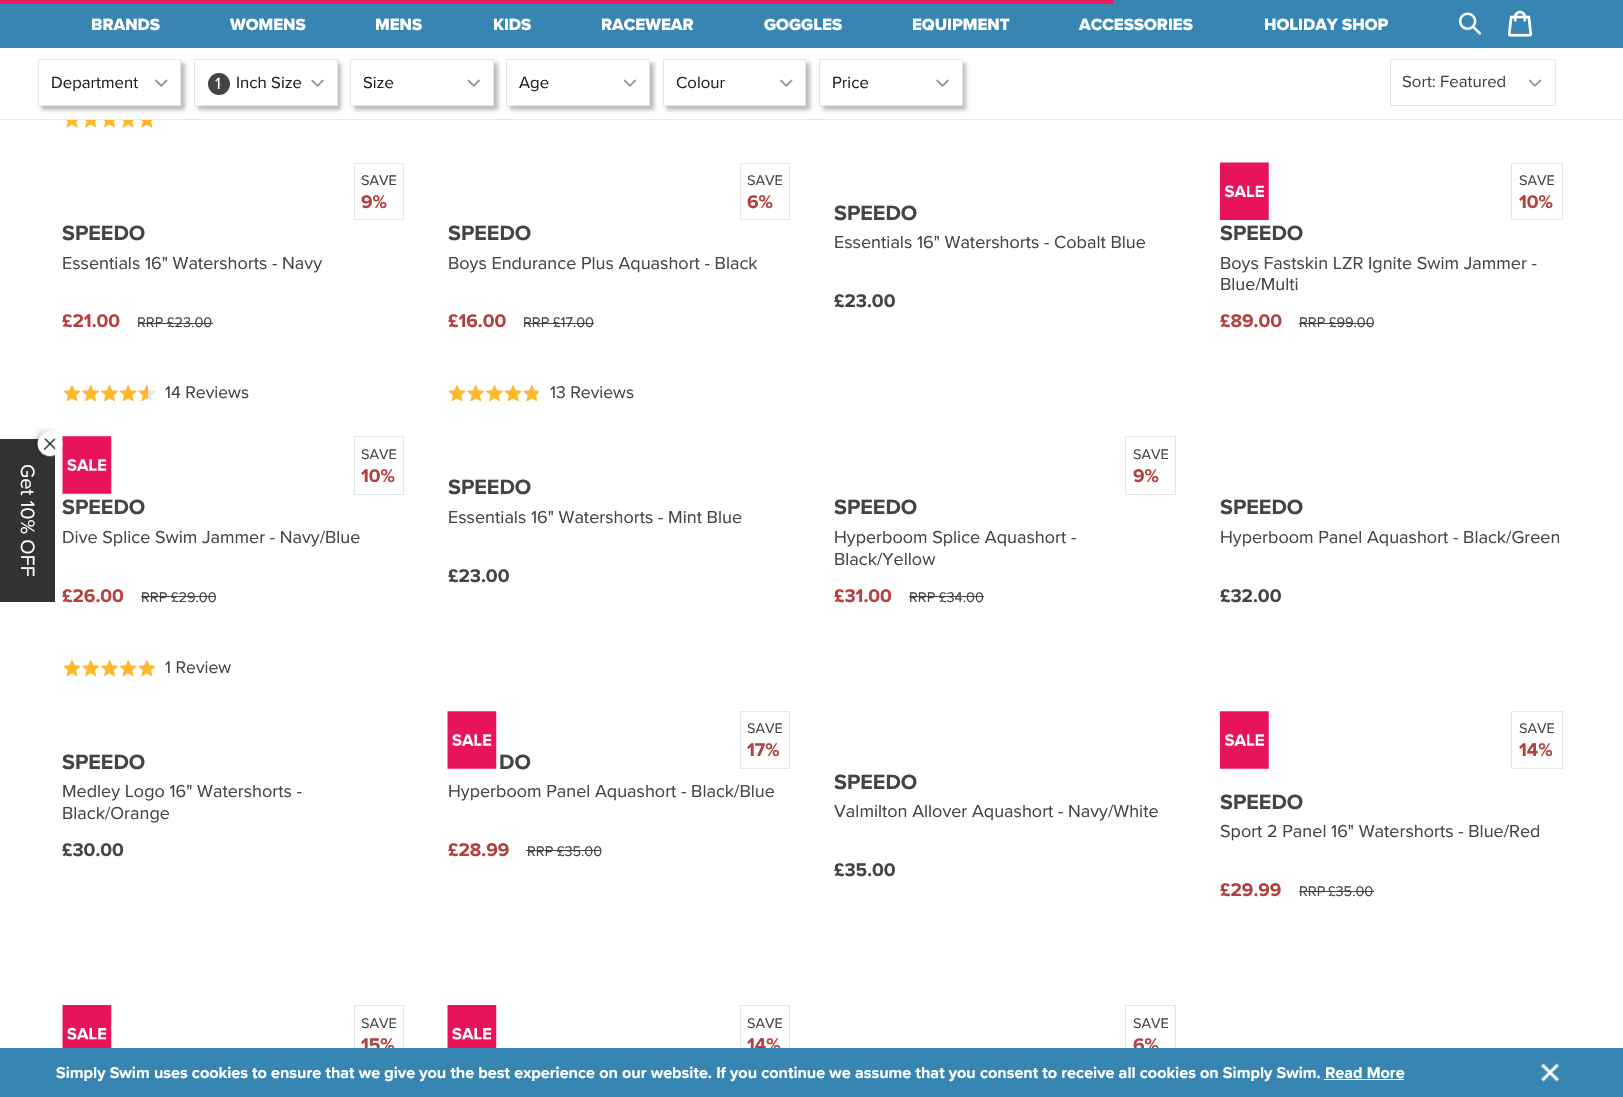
#include "include/core/SkBlurTypes.h"
#include "include/core/SkCanvas.h"
#include "include/core/SkData.h"
#include "include/core/SkFont.h"
#include "include/core/SkFontMgr.h"
#include "include/core/SkImage.h"
#include "include/core/SkMaskFilter.h"
#include "include/core/SkPaint.h"
#include "include/core/SkPathBuilder.h"
#include "include/core/SkTextBlob.h"
#include "include/effects/SkDashPathEffect.h"
#include "include/effects/SkGradientShader.h"
#include "include/utils/SkParsePath.h"

extern sk_sp<SkFontMgr> fontMgr;

static SkFont font(const char* family, int weight, float size, bool italic = false) {
    SkFontStyle style(weight, SkFontStyle::kNormal_Width,
        italic ? SkFontStyle::kItalic_Slant : SkFontStyle::kUpright_Slant);
    SkFont result(fontMgr->matchFamilyStyle(family, style), size);
    result.setSubpixel(true);
    return result;
}

static void drawLabel(SkCanvas* canvas, const char* s, float x, float y, const SkFont& font, SkColor color) {
    SkPaint ink(SkColor4f::FromColor(color));
    ink.setAntiAlias(true);
    canvas->drawString(s, x, y, font, ink);
}

static void fillRect(SkCanvas* canvas, float x, float y, float w, float h, SkColor color) {
    SkPaint ink(SkColor4f::FromColor(color));
    ink.setAntiAlias(true);
    canvas->drawRect(SkRect::MakeXYWH(x, y, w, h), ink);
}

static void drawPhoto(SkCanvas* canvas, const char* path, float x, float y, float w, float h) {
    auto image = SkImages::DeferredFromEncodedData(SkData::MakeFromFileName(path));
    canvas->drawImageRect(image, SkRect::MakeXYWH(x, y, w, h), SkSamplingOptions());
}

static SkPath parsePath(const char* data, bool evenOdd = false) {
    SkPath result = *SkParsePath::FromSVGString(data);
    if (evenOdd) result.setFillType(SkPathFillType::kEvenOdd);
    return result;
}

void draw(SkCanvas* canvas) {
    SkPaint paint;
    paint.setAntiAlias(true);
    canvas->clear(0xFFFFFFFF);
    fillRect(canvas, 0, 0, 1623, 48, 0xFF3785B3);
    fillRect(canvas, 0, 0, 1113, 4, 0xFFE51C5C);
    SkFont font1 = font("Proxima Nova", 800, 16.75f);
    drawLabel(canvas, "BRANDS", 91, 30, font1, 0xFFFFFFFF);
    drawLabel(canvas, "WOMENS", 230, 30, font1, 0xFFFFFFFF);
    drawLabel(canvas, "MENS", 375, 30, font1, 0xFFFFFFFF);
    drawLabel(canvas, "KIDS", 493, 30, font1, 0xFFFFFFFF);
    drawLabel(canvas, "RACEWEAR", 601, 30, font1, 0xFFFFFFFF);
    drawLabel(canvas, "GOGGLES", 764, 30, font1, 0xFFFFFFFF);
    drawLabel(canvas, "EQUIPMENT", 912, 30, font1, 0xFFFFFFFF);
    drawLabel(canvas, "ACCESSORIES", 1079, 30, font1, 0xFFFFFFFF);
    drawLabel(canvas, "HOLIDAY SHOP", 1264, 30, font1, 0xFFFFFFFF);
    drawPhoto(canvas, "assets/img1.png", 1458, 12, 23, 23);
    drawPhoto(canvas, "assets/img2.png", 1508, 10, 25, 27);
    fillRect(canvas, 0, 439, 55, 163, 0xFF333333);
    drawPhoto(canvas, "assets/img14.png", 62, 436, 50, 58);
    drawPhoto(canvas, "assets/img3.png", 32, 428, 31, 30);
    SkFont font2 = font("Proxima Nova", 400, 20);
    canvas->save();
    canvas->rotate(90, 21, 464);
    drawLabel(canvas, "Get 10% OFF", 21, 464, font2, 0xFFFFFFFF);
    canvas->restore();
    fillRect(canvas, 0, 119, 1623, 1, 0xFFE5E5E5);
    canvas->save();
    canvas->clipPath(parsePath("M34 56H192V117H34ZM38 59H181V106H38Z", true), true);
    paint.setColor(0xFFBBBBBB);
    paint.setMaskFilter(SkMaskFilter::MakeBlur(kNormal_SkBlurStyle, 2));
    canvas->drawRect(SkRect::MakeXYWH(41, 63, 144, 47), paint);
    paint.setMaskFilter(nullptr);
    canvas->restore();
    paint.setStroke(true);
    paint.setStrokeWidth(1);
    paint.setColor(0xFFE5E5E5);
    canvas->drawRect(SkRect::MakeXYWH(38.5f, 59.5f, 142, 46), paint);
    SkFont font3 = font("Proxima Nova", 400, 16.75f);
    drawLabel(canvas, "Department", 51, 88, font3, 0xFF222222);
    drawPhoto(canvas, "assets/img4.png", 155, 79, 13, 8);
    canvas->save();
    canvas->clipPath(parsePath("M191 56H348V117H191ZM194 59H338V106H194Z", true), true);
    paint.setStroke(false);
    paint.setColor(0xFFBBBBBB);
    paint.setMaskFilter(SkMaskFilter::MakeBlur(kNormal_SkBlurStyle, 2));
    canvas->drawRect(SkRect::MakeXYWH(198, 63, 143, 47), paint);
    paint.setMaskFilter(nullptr);
    canvas->restore();
    paint.setStroke(true);
    paint.setColor(0xFFE5E5E5);
    canvas->drawRect(SkRect::MakeXYWH(194.5f, 59.5f, 143, 46), paint);
    paint.setStroke(false);
    paint.setColor(0xFF444444);
    canvas->drawCircle(219, 84, 11, paint);
    drawLabel(canvas, "1", 215, 89, font3, 0xFFFFFFFF);
    drawLabel(canvas, "Inch Size", 236, 88, font3, 0xFF222222);
    drawPhoto(canvas, "assets/img5.png", 311, 79, 13, 8);
    canvas->save();
    canvas->clipPath(parsePath("M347 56H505V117H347ZM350 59H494V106H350Z", true), true);
    paint.setColor(0xFFBBBBBB);
    paint.setMaskFilter(SkMaskFilter::MakeBlur(kNormal_SkBlurStyle, 2));
    canvas->drawRect(SkRect::MakeXYWH(354, 63, 144, 47), paint);
    paint.setMaskFilter(nullptr);
    canvas->restore();
    paint.setStroke(true);
    paint.setColor(0xFFE5E5E5);
    canvas->drawRect(SkRect::MakeXYWH(350.5f, 59.5f, 143, 46), paint);
    drawLabel(canvas, "Size", 363, 88, font3, 0xFF222222);
    drawPhoto(canvas, "assets/img6.png", 468, 79, 12, 8);
    canvas->save();
    canvas->clipPath(parsePath("M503 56H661V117H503ZM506 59H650V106H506Z", true), true);
    paint.setStroke(false);
    paint.setColor(0xFFBBBBBB);
    paint.setMaskFilter(SkMaskFilter::MakeBlur(kNormal_SkBlurStyle, 2));
    canvas->drawRect(SkRect::MakeXYWH(510, 63, 144, 47), paint);
    paint.setMaskFilter(nullptr);
    canvas->restore();
    paint.setStroke(true);
    paint.setColor(0xFFE5E5E5);
    canvas->drawRect(SkRect::MakeXYWH(506.5f, 59.5f, 143, 46), paint);
    drawLabel(canvas, "Age", 519, 88, font3, 0xFF222222);
    drawPhoto(canvas, "assets/img7.png", 624, 79, 12, 8);
    canvas->save();
    canvas->clipPath(parsePath("M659 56H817V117H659ZM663 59H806V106H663Z", true), true);
    paint.setStroke(false);
    paint.setColor(0xFFBBBBBB);
    paint.setMaskFilter(SkMaskFilter::MakeBlur(kNormal_SkBlurStyle, 2));
    canvas->drawRect(SkRect::MakeXYWH(666, 63, 144, 47), paint);
    paint.setMaskFilter(nullptr);
    canvas->restore();
    paint.setStroke(true);
    paint.setColor(0xFFE5E5E5);
    canvas->drawRect(SkRect::MakeXYWH(663.5f, 59.5f, 142, 46), paint);
    drawLabel(canvas, "Colour", 676, 88, font3, 0xFF222222);
    drawPhoto(canvas, "assets/img4.png", 780, 79, 13, 8);
    canvas->save();
    canvas->clipPath(parsePath("M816 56H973V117H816ZM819 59H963V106H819Z", true), true);
    paint.setStroke(false);
    paint.setColor(0xFFBBBBBB);
    paint.setMaskFilter(SkMaskFilter::MakeBlur(kNormal_SkBlurStyle, 2));
    canvas->drawRect(SkRect::MakeXYWH(823, 63, 143, 47), paint);
    paint.setMaskFilter(nullptr);
    canvas->restore();
    paint.setStroke(true);
    paint.setColor(0xFFE5E5E5);
    canvas->drawRect(SkRect::MakeXYWH(819.5f, 59.5f, 143, 46), paint);
    drawLabel(canvas, "Price", 832, 88, font3, 0xFF222222);
    drawPhoto(canvas, "assets/img5.png", 936, 79, 13, 8);
    drawPhoto(canvas, "assets/img7.png", 1529, 79, 12, 8);
    canvas->drawRect(SkRect::MakeXYWH(1390.5f, 59.5f, 165, 46), paint);
    drawLabel(canvas, "Sort: Featured", 1402, 87, font3, 0xFF444444);
    drawPhoto(canvas, "assets/img8.png", 66, 120, 87, 8);
    drawPhoto(canvas, "assets/img9.png", 66, 120, 87, 8);
    canvas->drawRect(SkRect::MakeXYWH(354.5f, 163.5f, 49, 56), paint);
    SkFont font4 = font("Proxima Nova", 400, 14.5f);
    drawLabel(canvas, "SAVE", 361, 185, font4, 0xFF444444);
    SkFont font5 = font("Proxima Nova", 700, 19);
    drawLabel(canvas, "9%", 361, 208, font5, 0xFFB54040);
    SkFont font6 = font("Proxima Nova", 700, 21.5f);
    drawLabel(canvas, "SPEEDO", 62, 240, font6, 0xFF444444);
    SkFont font7 = font("Proxima Nova", 400, 18);
    drawLabel(canvas, "Essentials 16\" Watershorts - Navy", 62, 269, font7, 0xFF444444);
    drawLabel(canvas, "£21.00", 62, 327, font5, 0xFFB54040);
    drawLabel(canvas, "RRP", 137, 327, font4, 0xFF444444);
    fillRect(canvas, 138, 323, 30, 1, 0xFF444444);
    drawLabel(canvas, "£23.00", 167, 327, font4, 0xFF444444);
    fillRect(canvas, 168, 323, 45, 1, 0xFF444444);
    drawPhoto(canvas, "assets/img10.png", 63, 385, 93, 16);
    drawPhoto(canvas, "assets/img11.png", 63, 385, 85, 17);
    SkFont font8 = font("Proxima Nova", 400, 17.5f);
    drawLabel(canvas, "14 Reviews", 165, 398, font8, 0xFF444444);
    canvas->drawRect(SkRect::MakeXYWH(740.5f, 163.5f, 49, 56), paint);
    drawLabel(canvas, "SAVE", 747, 185, font4, 0xFF444444);
    drawLabel(canvas, "6%", 747, 208, font5, 0xFFB54040);
    drawLabel(canvas, "SPEEDO", 448, 240, font6, 0xFF444444);
    drawLabel(canvas, "Boys Endurance Plus Aquashort - Black", 448, 269, font7, 0xFF444444);
    drawLabel(canvas, "£16.00", 448, 327, font5, 0xFFB54040);
    drawLabel(canvas, "RRP", 523, 327, font4, 0xFF444444);
    fillRect(canvas, 524, 323, 30, 1, 0xFF444444);
    drawLabel(canvas, "£17.00", 553, 327, font4, 0xFF444444);
    fillRect(canvas, 554, 323, 40, 1, 0xFF444444);
    drawPhoto(canvas, "assets/img10.png", 448, 385, 93, 16);
    drawPhoto(canvas, "assets/img12.png", 448, 385, 90, 17);
    drawLabel(canvas, "13 Reviews", 550, 398, font8, 0xFF444444);
    drawLabel(canvas, "SPEEDO", 834, 220, font6, 0xFF444444);
    drawLabel(canvas, "Essentials 16\" Watershorts - Cobalt Blue", 834, 248, font7, 0xFF444444);
    drawLabel(canvas, "£23.00", 834, 307, font5, 0xFF444444);
    drawPhoto(canvas, "assets/img13.png", 1220, 162, 49, 58);
    canvas->drawRect(SkRect::MakeXYWH(1511.5f, 163.5f, 51, 56), paint);
    drawLabel(canvas, "SAVE", 1519, 185, font4, 0xFF444444);
    drawLabel(canvas, "10%", 1519, 208, font5, 0xFFB54040);
    drawLabel(canvas, "SPEEDO", 1220, 240, font6, 0xFF444444);
    drawLabel(canvas, "Boys Fastskin LZR Ignite Swim Jammer -", 1220, 269, font7, 0xFF444444);
    drawLabel(canvas, "Blue/Multi", 1220, 290, font7, 0xFF444444);
    drawLabel(canvas, "£89.00", 1220, 327, font5, 0xFFB54040);
    drawLabel(canvas, "RRP £99.00", 1299, 327, font4, 0xFF444444);
    fillRect(canvas, 1299, 323, 75, 1, 0xFF444444);
    canvas->drawRect(SkRect::MakeXYWH(354.5f, 436.5f, 49, 58), paint);
    drawLabel(canvas, "SAVE", 361, 459, font4, 0xFF444444);
    drawLabel(canvas, "10%", 361, 482, font5, 0xFFB54040);
    drawLabel(canvas, "SPEEDO", 62, 514, font6, 0xFF444444);
    drawLabel(canvas, "Dive Splice Swim Jammer - Navy/Blue", 62, 543, font7, 0xFF444444);
    drawLabel(canvas, "£26.00", 62, 602, font5, 0xFFB54040);
    drawLabel(canvas, "RRP £29.00", 141, 602, font4, 0xFF444444);
    fillRect(canvas, 141, 596, 75, 1, 0xFF444444);
    drawPhoto(canvas, "assets/img10.png", 63, 660, 93, 16);
    drawPhoto(canvas, "assets/img15.png", 63, 660, 93, 17);
    drawLabel(canvas, "1 Review", 165, 673, font8, 0xFF444444);
    drawLabel(canvas, "SPEEDO", 448, 494, font6, 0xFF444444);
    drawLabel(canvas, "Essentials 16\" Watershorts - Mint Blue", 448, 523, font7, 0xFF444444);
    drawLabel(canvas, "£23.00", 448, 582, font5, 0xFF444444);
    canvas->drawRect(SkRect::MakeXYWH(1125.5f, 436.5f, 50, 58), paint);
    drawLabel(canvas, "SAVE", 1133, 459, font4, 0xFF444444);
    drawLabel(canvas, "9%", 1133, 482, font5, 0xFFB54040);
    drawLabel(canvas, "SPEEDO", 834, 514, font6, 0xFF444444);
    drawLabel(canvas, "Hyperboom Splice Aquashort -", 834, 543, font7, 0xFF444444);
    drawLabel(canvas, "Black/Yellow", 834, 565, font7, 0xFF444444);
    drawLabel(canvas, "£31.00", 834, 602, font5, 0xFFB54040);
    drawLabel(canvas, "RRP", 909, 602, font4, 0xFF444444);
    fillRect(canvas, 909, 596, 30, 1, 0xFF444444);
    drawLabel(canvas, "£34.00", 939, 602, font4, 0xFF444444);
    fillRect(canvas, 939, 596, 45, 1, 0xFF444444);
    drawLabel(canvas, "SPEEDO", 1220, 514, font6, 0xFF444444);
    drawLabel(canvas, "Hyperboom Panel Aquashort - Black/Green", 1220, 543, font7, 0xFF444444);
    drawLabel(canvas, "£32.00", 1220, 602, font5, 0xFF444444);
    drawLabel(canvas, "SPEEDO", 62, 769, font6, 0xFF444444);
    drawLabel(canvas, "Medley Logo 16\" Watershorts -", 62, 797, font7, 0xFF444444);
    drawLabel(canvas, "Black/Orange", 62, 819, font7, 0xFF444444);
    drawLabel(canvas, "£30.00", 62, 856, font5, 0xFF444444);
    drawPhoto(canvas, "assets/img16.png", 447, 711, 50, 58);
    canvas->drawRect(SkRect::MakeXYWH(740.5f, 711.5f, 49, 57), paint);
    drawLabel(canvas, "SAVE", 747, 733, font4, 0xFF444444);
    drawLabel(canvas, "17%", 747, 756, font5, 0xFFB54040);
    drawLabel(canvas, "DO", 499, 769, font6, 0xFF444444);
    drawLabel(canvas, "Hyperboom Panel Aquashort - Black/Blue", 448, 797, font7, 0xFF444444);
    drawLabel(canvas, "£28.99", 448, 856, font5, 0xFFB54040);
    drawLabel(canvas, "RRP £35.00", 527, 856, font4, 0xFF444444);
    fillRect(canvas, 526, 850, 75, 1, 0xFF444444);
    drawLabel(canvas, "SPEEDO", 834, 789, font6, 0xFF444444);
    drawLabel(canvas, "Valmilton Allover Aquashort - Navy/White", 834, 817, font7, 0xFF444444);
    drawLabel(canvas, "£35.00", 834, 876, font5, 0xFF444444);
    drawPhoto(canvas, "assets/img17.png", 1220, 711, 49, 58);
    canvas->drawRect(SkRect::MakeXYWH(1511.5f, 711.5f, 51, 57), paint);
    drawLabel(canvas, "SAVE", 1519, 733, font4, 0xFF444444);
    drawLabel(canvas, "14%", 1519, 756, font5, 0xFFB54040);
    drawLabel(canvas, "SPEEDO", 1220, 809, font6, 0xFF444444);
    drawLabel(canvas, "Sport 2 Panel 16\" Watershorts - Blue/Red", 1220, 837, font7, 0xFF444444);
    drawLabel(canvas, "£29.99", 1220, 896, font5, 0xFFB54040);
    drawLabel(canvas, "RRP", 1299, 896, font4, 0xFF444444);
    fillRect(canvas, 1299, 891, 30, 1, 0xFF444444);
    drawLabel(canvas, "£35.00", 1328, 896, font4, 0xFF444444);
    fillRect(canvas, 1329, 891, 45, 1, 0xFF444444);
    drawPhoto(canvas, "assets/img18.png", 62, 1005, 50, 43);
    canvas->drawRect(SkRect::MakeXYWH(354.5f, 1005.5f, 49, 58), paint);
    drawLabel(canvas, "SAVE", 361, 1028, font4, 0xFF444444);
    drawLabel(canvas, "15%", 361, 1051, font5, 0xFFB54040);
    drawPhoto(canvas, "assets/img19.png", 447, 1005, 50, 43);
    canvas->drawRect(SkRect::MakeXYWH(740.5f, 1005.5f, 49, 58), paint);
    drawLabel(canvas, "SAVE", 747, 1028, font4, 0xFF444444);
    drawLabel(canvas, "14%", 747, 1051, font5, 0xFFB54040);
    canvas->drawRect(SkRect::MakeXYWH(1125.5f, 1005.5f, 50, 58), paint);
    drawLabel(canvas, "SAVE", 1133, 1028, font4, 0xFF444444);
    drawLabel(canvas, "6%", 1133, 1051, font5, 0xFFB54040);
    fillRect(canvas, 0, 1048, 1623, 49, 0xFF3785B3);
    SkFont font9 = font("Proxima Nova", 700, 16.2f);
    drawLabel(canvas, "Simply Swim uses cookies to ensure that we give you the best experience on our website. If you continue we assume that you consent to receive all cookies on Simply Swim. Read More", 56, 1078, font9, 0xFFFFFFFF);
    drawPhoto(canvas, "assets/img20.png", 1541, 1063, 18, 19);
    fillRect(canvas, 1324, 1079, 80, 1, 0xFFFFFFFF);
}
